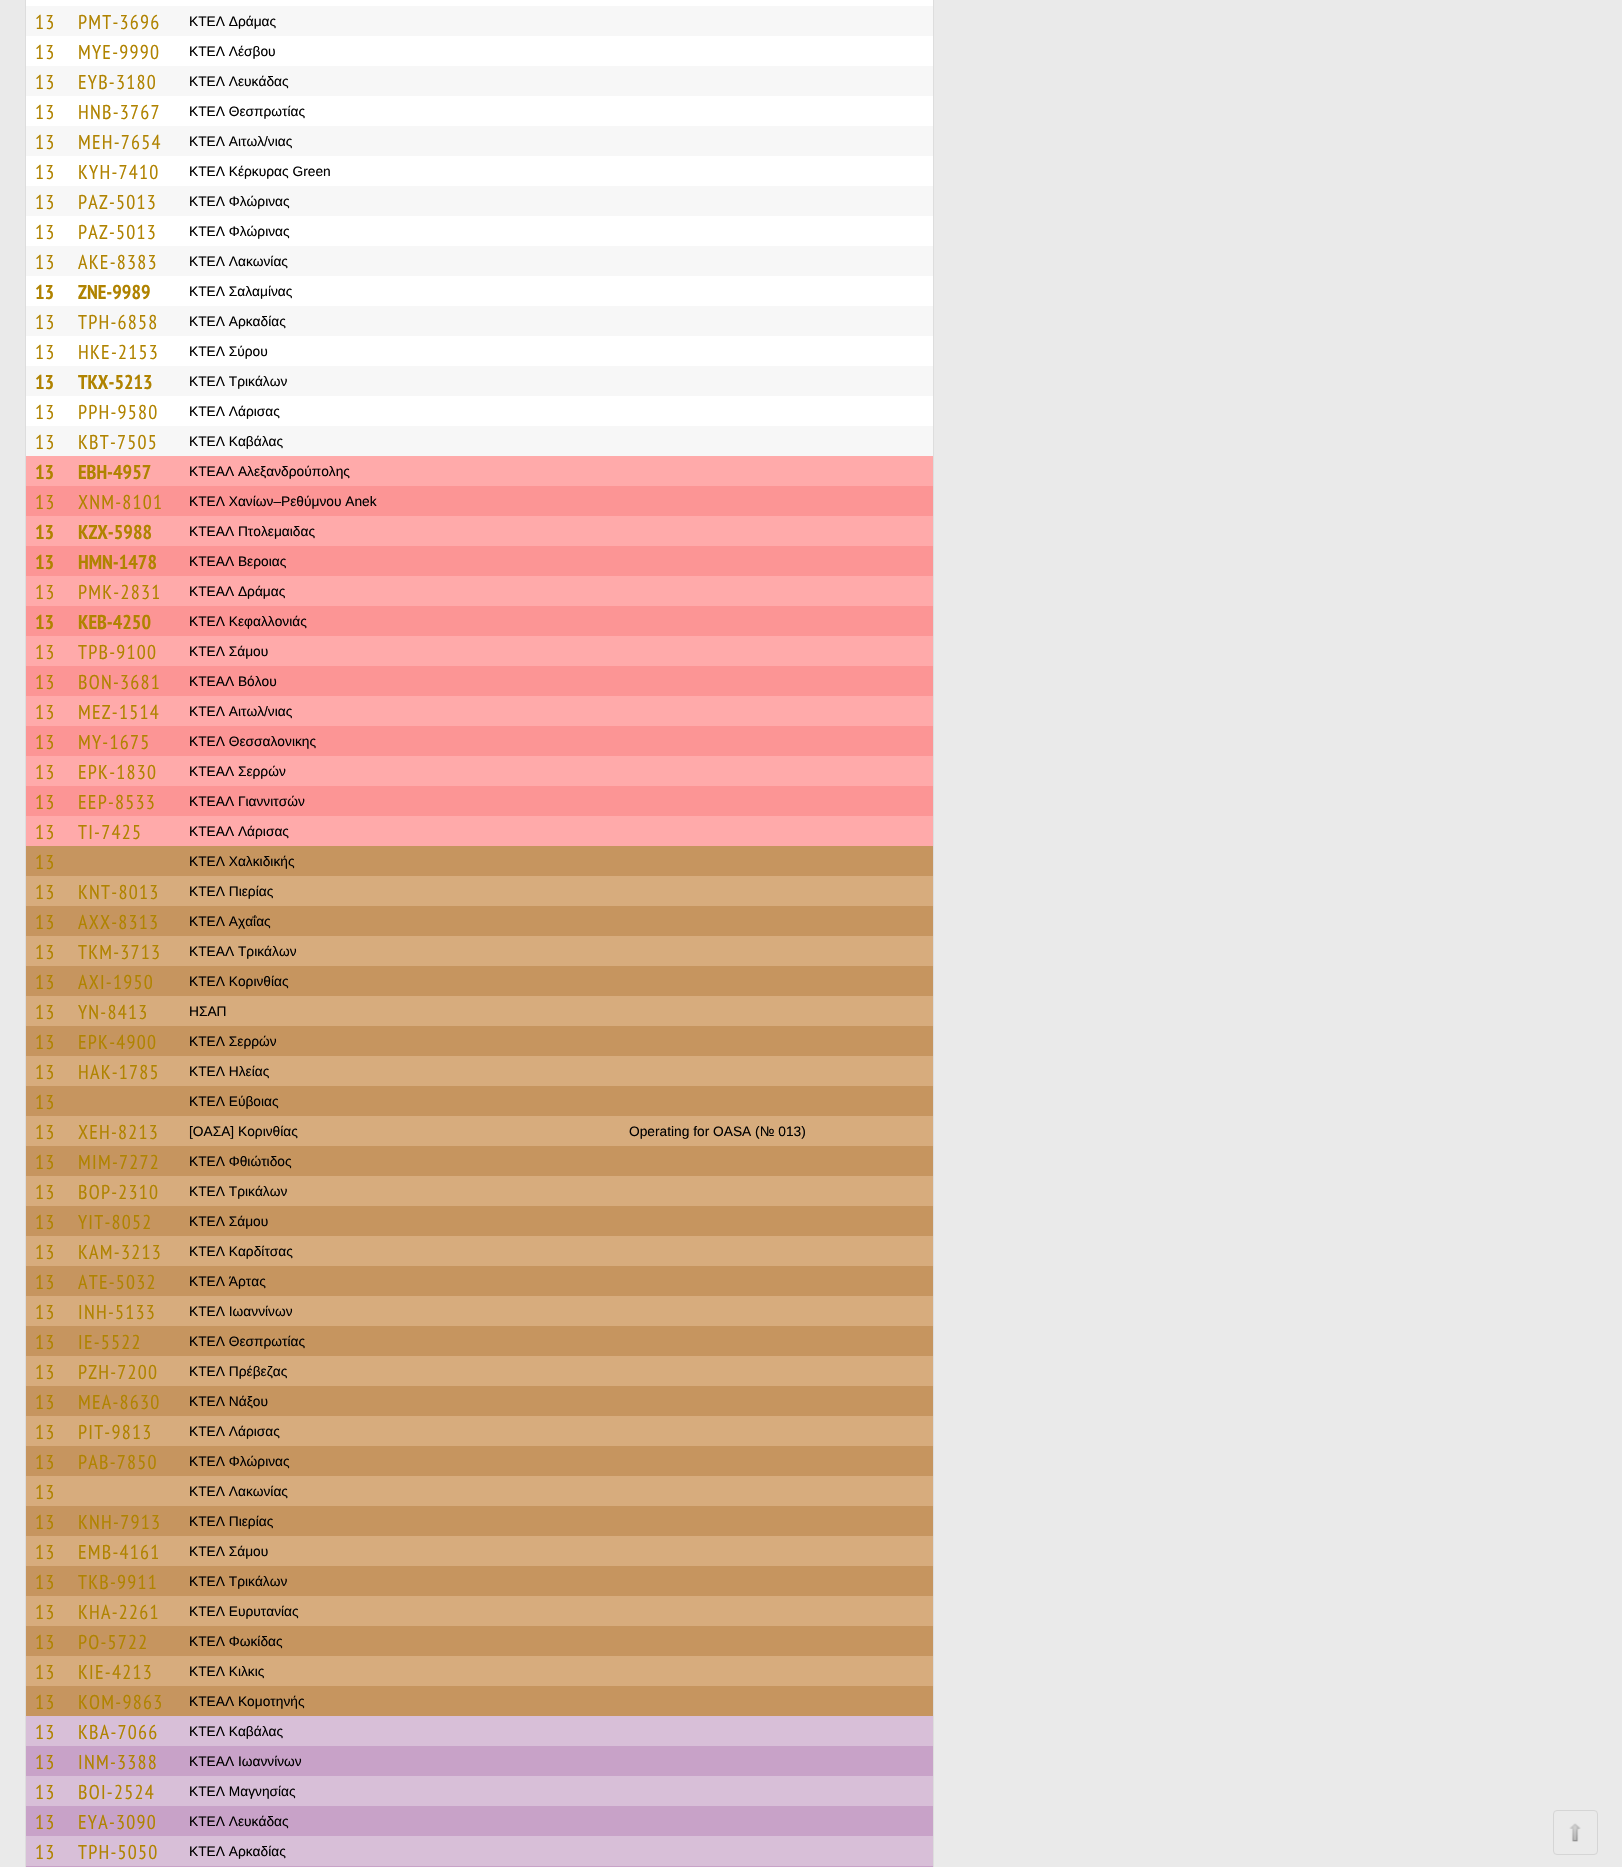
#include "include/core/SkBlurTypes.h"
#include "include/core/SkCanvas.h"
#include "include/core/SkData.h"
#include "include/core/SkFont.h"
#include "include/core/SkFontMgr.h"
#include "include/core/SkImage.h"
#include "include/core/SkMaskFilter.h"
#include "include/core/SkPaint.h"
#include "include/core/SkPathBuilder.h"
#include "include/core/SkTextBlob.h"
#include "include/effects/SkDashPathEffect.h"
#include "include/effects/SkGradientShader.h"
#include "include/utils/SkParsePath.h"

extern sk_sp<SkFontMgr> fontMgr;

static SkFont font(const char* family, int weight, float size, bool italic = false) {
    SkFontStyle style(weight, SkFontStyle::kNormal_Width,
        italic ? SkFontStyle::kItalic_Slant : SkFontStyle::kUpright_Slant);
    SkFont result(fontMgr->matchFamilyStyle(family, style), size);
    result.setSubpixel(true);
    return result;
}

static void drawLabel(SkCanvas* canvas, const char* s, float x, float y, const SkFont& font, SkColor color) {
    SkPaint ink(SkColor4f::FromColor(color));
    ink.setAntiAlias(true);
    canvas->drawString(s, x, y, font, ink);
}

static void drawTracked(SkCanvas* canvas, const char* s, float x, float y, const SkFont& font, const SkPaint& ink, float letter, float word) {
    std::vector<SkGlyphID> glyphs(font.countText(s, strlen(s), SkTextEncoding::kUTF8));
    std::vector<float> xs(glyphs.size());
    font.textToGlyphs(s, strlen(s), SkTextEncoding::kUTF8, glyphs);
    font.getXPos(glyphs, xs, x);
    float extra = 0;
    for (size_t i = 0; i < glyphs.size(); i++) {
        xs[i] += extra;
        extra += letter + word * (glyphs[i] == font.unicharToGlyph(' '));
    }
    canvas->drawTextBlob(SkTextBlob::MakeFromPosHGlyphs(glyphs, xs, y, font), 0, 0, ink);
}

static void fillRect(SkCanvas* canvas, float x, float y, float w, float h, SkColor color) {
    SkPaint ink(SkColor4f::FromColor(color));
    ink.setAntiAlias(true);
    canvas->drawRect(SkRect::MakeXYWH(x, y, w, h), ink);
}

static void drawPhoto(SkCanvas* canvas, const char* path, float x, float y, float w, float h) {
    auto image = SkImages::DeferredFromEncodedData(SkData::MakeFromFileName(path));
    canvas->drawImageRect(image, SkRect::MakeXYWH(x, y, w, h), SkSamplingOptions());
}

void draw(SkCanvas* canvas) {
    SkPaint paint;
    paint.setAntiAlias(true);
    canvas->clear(0xFFEAEAEA);
    fillRect(canvas, 26, 0, 907, 426, 0xFFFFFFFF);
    paint.setStroke(true);
    paint.setStrokeWidth(1);
    paint.setColor(0xFFDDDDDD);
    canvas->drawRect(SkRect::MakeXYWH(25.5f, -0.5f, 908, 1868), paint);
    fillRect(canvas, 26, 6, 907, 30, 0xFFF7F7F7);
    SkFont font1 = font("PT Sans Narrow", 400, 20);
    paint.setStroke(false);
    paint.setColor(0xFFB08300);
    drawTracked(canvas, "13", 35, 29, font1, paint, 1.25f, 0);
    drawTracked(canvas, "PMT-3696", 78, 29, font1, paint, 1.25f, 0);
    SkFont font2 = font("Liberation Sans", 400, 13.75f);
    drawLabel(canvas, "ΚΤΕΛ Δράμας", 189, 26, font2, 0xFF000000);
    drawTracked(canvas, "13", 35, 59, font1, paint, 1.25f, 0);
    drawTracked(canvas, "MYE-9990", 78, 59, font1, paint, 1.25f, 0);
    drawLabel(canvas, "ΚΤΕΛ Λέσβου", 189, 56, font2, 0xFF000000);
    fillRect(canvas, 26, 66, 907, 30, 0xFFF7F7F7);
    drawTracked(canvas, "13", 35, 89, font1, paint, 1.25f, 0);
    drawTracked(canvas, "EYB-3180", 78, 89, font1, paint, 1.25f, 0);
    drawLabel(canvas, "ΚΤΕΛ Λευκάδας", 189, 86, font2, 0xFF000000);
    drawTracked(canvas, "13", 35, 119, font1, paint, 1.25f, 0);
    drawTracked(canvas, "HNB-3767", 78, 119, font1, paint, 1.25f, 0);
    drawLabel(canvas, "ΚΤΕΛ Θεσπρωτίας", 189, 116, font2, 0xFF000000);
    fillRect(canvas, 26, 126, 907, 30, 0xFFF7F7F7);
    drawTracked(canvas, "13", 35, 149, font1, paint, 1.25f, 0);
    drawTracked(canvas, "MEH-7654", 78, 149, font1, paint, 1.25f, 0);
    drawLabel(canvas, "ΚΤΕΛ Αιτωλ/νιας", 189, 146, font2, 0xFF000000);
    drawTracked(canvas, "13", 35, 179, font1, paint, 1.25f, 0);
    drawTracked(canvas, "KYH-7410", 78, 179, font1, paint, 1.25f, 0);
    drawLabel(canvas, "ΚΤΕΛ Κέρκυρας Green", 189, 176, font2, 0xFF000000);
    fillRect(canvas, 26, 186, 907, 30, 0xFFF7F7F7);
    drawTracked(canvas, "13", 35, 209, font1, paint, 1.25f, 0);
    drawTracked(canvas, "PAZ-5013", 78, 209, font1, paint, 1.25f, 0);
    drawLabel(canvas, "ΚΤΕΛ Φλώρινας", 189, 206, font2, 0xFF000000);
    drawTracked(canvas, "13", 35, 239, font1, paint, 1.25f, 0);
    drawTracked(canvas, "PAZ-5013", 78, 239, font1, paint, 1.25f, 0);
    drawLabel(canvas, "ΚΤΕΛ Φλώρινας", 189, 236, font2, 0xFF000000);
    fillRect(canvas, 26, 246, 907, 30, 0xFFF7F7F7);
    drawTracked(canvas, "13", 35, 269, font1, paint, 1.25f, 0);
    drawTracked(canvas, "AKE-8383", 78, 269, font1, paint, 1.25f, 0);
    drawLabel(canvas, "ΚΤΕΛ Λακωνίας", 189, 266, font2, 0xFF000000);
    SkFont font3 = font("PT Sans Narrow", 700, 20);
    drawLabel(canvas, "13", 35, 299, font3, 0xFFB08300);
    drawLabel(canvas, "ZNE-9989", 78, 299, font3, 0xFFB08300);
    drawLabel(canvas, "ΚΤΕΛ Σαλαμίνας", 189, 296, font2, 0xFF000000);
    fillRect(canvas, 26, 306, 907, 30, 0xFFF7F7F7);
    drawTracked(canvas, "13", 35, 329, font1, paint, 1.25f, 0);
    drawTracked(canvas, "TPH-6858", 78, 329, font1, paint, 1.25f, 0);
    drawLabel(canvas, "ΚΤΕΛ Αρκαδίας", 189, 326, font2, 0xFF000000);
    drawTracked(canvas, "13", 35, 359, font1, paint, 1.25f, 0);
    drawTracked(canvas, "HKE-2153", 78, 359, font1, paint, 1.25f, 0);
    drawLabel(canvas, "ΚΤΕΛ Σύρου", 189, 356, font2, 0xFF000000);
    fillRect(canvas, 26, 366, 907, 30, 0xFFF7F7F7);
    drawLabel(canvas, "13", 35, 389, font3, 0xFFB08300);
    drawLabel(canvas, "TKX-5213", 78, 389, font3, 0xFFB08300);
    drawLabel(canvas, "ΚΤΕΛ Τρικάλων", 189, 386, font2, 0xFF000000);
    drawTracked(canvas, "13", 35, 419, font1, paint, 1.25f, 0);
    drawTracked(canvas, "PPH-9580", 78, 419, font1, paint, 1.25f, 0);
    drawLabel(canvas, "ΚΤΕΛ Λάρισας", 189, 416, font2, 0xFF000000);
    fillRect(canvas, 26, 426, 907, 30, 0xFFF7F7F7);
    drawTracked(canvas, "13", 35, 449, font1, paint, 1.25f, 0);
    drawTracked(canvas, "KBT-7505", 78, 449, font1, paint, 1.25f, 0);
    drawLabel(canvas, "ΚΤΕΛ Καβάλας", 189, 446, font2, 0xFF000000);
    fillRect(canvas, 26, 456, 907, 30, 0xFFFFAAAA);
    drawLabel(canvas, "13", 35, 479, font3, 0xFFB08300);
    drawLabel(canvas, "EBH-4957", 78, 479, font3, 0xFFB08300);
    drawLabel(canvas, "ΚΤΕΑΛ Αλεξανδρούπολης", 189, 476, font2, 0xFF000000);
    fillRect(canvas, 26, 486, 907, 30, 0xFFFC9595);
    drawTracked(canvas, "13", 35, 509, font1, paint, 1.25f, 0);
    drawTracked(canvas, "XNM-8101", 78, 509, font1, paint, 1.25f, 0);
    drawLabel(canvas, "ΚΤΕΛ Χανίων–Ρεθύμνου Anek", 189, 506, font2, 0xFF000000);
    fillRect(canvas, 26, 516, 907, 30, 0xFFFFAAAA);
    drawLabel(canvas, "13", 35, 539, font3, 0xFFB08300);
    drawLabel(canvas, "KZX-5988", 78, 539, font3, 0xFFB08300);
    drawLabel(canvas, "ΚΤΕAΛ Πτολεμαιδας", 189, 536, font2, 0xFF000000);
    fillRect(canvas, 26, 546, 907, 30, 0xFFFC9595);
    drawLabel(canvas, "13", 35, 569, font3, 0xFFB08300);
    drawLabel(canvas, "HMN-1478", 78, 569, font3, 0xFFB08300);
    drawLabel(canvas, "ΚΤΕΑΛ Βεροιας", 189, 566, font2, 0xFF000000);
    fillRect(canvas, 26, 576, 907, 30, 0xFFFFAAAA);
    drawTracked(canvas, "13", 35, 599, font1, paint, 1.25f, 0);
    drawTracked(canvas, "PMK-2831", 78, 599, font1, paint, 1.25f, 0);
    drawLabel(canvas, "ΚΤΕΑΛ Δράμας", 189, 596, font2, 0xFF000000);
    fillRect(canvas, 26, 606, 907, 30, 0xFFFC9595);
    drawLabel(canvas, "13", 35, 629, font3, 0xFFB08300);
    drawLabel(canvas, "KEB-4250", 78, 629, font3, 0xFFB08300);
    drawLabel(canvas, "ΚΤΕΛ Κεφαλλονιάς", 189, 626, font2, 0xFF000000);
    fillRect(canvas, 26, 636, 907, 30, 0xFFFFAAAA);
    drawTracked(canvas, "13", 35, 659, font1, paint, 1.25f, 0);
    drawTracked(canvas, "TPB-9100", 78, 659, font1, paint, 1.25f, 0);
    drawLabel(canvas, "ΚΤΕΛ Σάμου", 189, 656, font2, 0xFF000000);
    fillRect(canvas, 26, 666, 907, 30, 0xFFFC9595);
    drawTracked(canvas, "13", 35, 689, font1, paint, 1.25f, 0);
    drawTracked(canvas, "BON-3681", 78, 689, font1, paint, 1.25f, 0);
    drawLabel(canvas, "ΚΤΕΑΛ Βόλου", 189, 686, font2, 0xFF000000);
    fillRect(canvas, 26, 696, 907, 30, 0xFFFFAAAA);
    drawTracked(canvas, "13", 35, 719, font1, paint, 1.25f, 0);
    drawTracked(canvas, "MEZ-1514", 78, 719, font1, paint, 1.25f, 0);
    drawLabel(canvas, "ΚΤΕΛ Αιτωλ/νιας", 189, 716, font2, 0xFF000000);
    fillRect(canvas, 26, 726, 907, 30, 0xFFFC9595);
    drawTracked(canvas, "13", 35, 749, font1, paint, 1.25f, 0);
    drawTracked(canvas, "MY-1675", 78, 749, font1, paint, 1.25f, 0);
    drawLabel(canvas, "ΚΤΕΛ Θεσσαλονικης", 189, 746, font2, 0xFF000000);
    fillRect(canvas, 26, 756, 907, 30, 0xFFFFAAAA);
    drawTracked(canvas, "13", 35, 779, font1, paint, 1.25f, 0);
    drawTracked(canvas, "EPK-1830", 78, 779, font1, paint, 1.25f, 0);
    drawLabel(canvas, "ΚΤΕΑΛ Σερρών", 189, 776, font2, 0xFF000000);
    fillRect(canvas, 26, 786, 907, 30, 0xFFFC9595);
    drawTracked(canvas, "13", 35, 809, font1, paint, 1.25f, 0);
    drawTracked(canvas, "EEP-8533", 78, 809, font1, paint, 1.25f, 0);
    drawLabel(canvas, "ΚΤΕΑΛ Γιαννιτσών", 189, 806, font2, 0xFF000000);
    fillRect(canvas, 26, 816, 907, 30, 0xFFFFAAAA);
    drawTracked(canvas, "13", 35, 839, font1, paint, 1.25f, 0);
    drawTracked(canvas, "TI-7425", 78, 839, font1, paint, 1.25f, 0);
    drawLabel(canvas, "ΚΤΕAΛ Λάρισας", 189, 836, font2, 0xFF000000);
    fillRect(canvas, 26, 846, 907, 30, 0xFFC6955F);
    drawTracked(canvas, "13", 35, 869, font1, paint, 1.25f, 0);
    drawLabel(canvas, "ΚΤΕΛ Χαλκιδικής", 189, 866, font2, 0xFF000000);
    fillRect(canvas, 26, 876, 907, 30, 0xFFD7AC7D);
    drawTracked(canvas, "13", 35, 899, font1, paint, 1.25f, 0);
    drawTracked(canvas, "KNT-8013", 78, 899, font1, paint, 1.25f, 0);
    drawLabel(canvas, "ΚΤΕΛ Πιερίας", 189, 896, font2, 0xFF000000);
    fillRect(canvas, 26, 906, 907, 30, 0xFFC6955F);
    drawTracked(canvas, "13", 35, 929, font1, paint, 1.25f, 0);
    drawTracked(canvas, "AXX-8313", 78, 929, font1, paint, 1.25f, 0);
    drawLabel(canvas, "ΚΤΕΛ Αχαΐας", 189, 926, font2, 0xFF000000);
    fillRect(canvas, 26, 936, 907, 30, 0xFFD7AC7D);
    drawTracked(canvas, "13", 35, 959, font1, paint, 1.25f, 0);
    drawTracked(canvas, "TKM-3713", 78, 959, font1, paint, 1.25f, 0);
    drawLabel(canvas, "ΚΤΕAΛ Τρικάλων", 189, 956, font2, 0xFF000000);
    fillRect(canvas, 26, 966, 907, 30, 0xFFC6955F);
    drawTracked(canvas, "13", 35, 989, font1, paint, 1.25f, 0);
    drawTracked(canvas, "AXI-1950", 78, 989, font1, paint, 1.25f, 0);
    drawLabel(canvas, "ΚΤΕΛ Κορινθίας", 189, 986, font2, 0xFF000000);
    fillRect(canvas, 26, 996, 907, 30, 0xFFD7AC7D);
    drawTracked(canvas, "13", 35, 1019, font1, paint, 1.25f, 0);
    drawTracked(canvas, "YN-8413", 78, 1019, font1, paint, 1.25f, 0);
    drawLabel(canvas, "ΗΣΑΠ", 189, 1016, font2, 0xFF000000);
    fillRect(canvas, 26, 1026, 907, 30, 0xFFC6955F);
    drawTracked(canvas, "13", 35, 1049, font1, paint, 1.25f, 0);
    drawTracked(canvas, "EPK-4900", 78, 1049, font1, paint, 1.25f, 0);
    drawLabel(canvas, "ΚΤΕΛ Σερρών", 189, 1046, font2, 0xFF000000);
    fillRect(canvas, 26, 1056, 907, 30, 0xFFD7AC7D);
    drawTracked(canvas, "13", 35, 1079, font1, paint, 1.25f, 0);
    drawTracked(canvas, "HAK-1785", 78, 1079, font1, paint, 1.25f, 0);
    drawLabel(canvas, "ΚΤΕΛ Ηλείας", 189, 1076, font2, 0xFF000000);
    fillRect(canvas, 26, 1086, 907, 30, 0xFFC6955F);
    drawTracked(canvas, "13", 35, 1109, font1, paint, 1.25f, 0);
    drawLabel(canvas, "ΚΤΕΛ Εύβοιας", 189, 1106, font2, 0xFF000000);
    fillRect(canvas, 26, 1116, 907, 30, 0xFFD7AC7D);
    drawTracked(canvas, "13", 35, 1139, font1, paint, 1.25f, 0);
    drawTracked(canvas, "XEH-8213", 78, 1139, font1, paint, 1.25f, 0);
    drawLabel(canvas, "[ΟΑΣΑ] Κορινθίας", 189, 1136, font2, 0xFF000000);
    drawLabel(canvas, "Operating for OASA (№ 013)", 629, 1136, font2, 0xFF000000);
    fillRect(canvas, 26, 1146, 907, 30, 0xFFC6955F);
    drawTracked(canvas, "13", 35, 1169, font1, paint, 1.25f, 0);
    drawTracked(canvas, "MIM-7272", 78, 1169, font1, paint, 1.25f, 0);
    drawLabel(canvas, "ΚΤΕΛ Φθιώτιδος", 189, 1166, font2, 0xFF000000);
    fillRect(canvas, 26, 1176, 907, 30, 0xFFD7AC7D);
    drawTracked(canvas, "13", 35, 1199, font1, paint, 1.25f, 0);
    drawTracked(canvas, "BOP-2310", 78, 1199, font1, paint, 1.25f, 0);
    drawLabel(canvas, "ΚΤΕΛ Τρικάλων", 189, 1196, font2, 0xFF000000);
    fillRect(canvas, 26, 1206, 907, 30, 0xFFC6955F);
    drawTracked(canvas, "13", 35, 1229, font1, paint, 1.25f, 0);
    drawTracked(canvas, "YIT-8052", 78, 1229, font1, paint, 1.25f, 0);
    drawLabel(canvas, "ΚΤΕΛ Σάμου", 189, 1226, font2, 0xFF000000);
    fillRect(canvas, 26, 1236, 907, 30, 0xFFD7AC7D);
    drawTracked(canvas, "13", 35, 1259, font1, paint, 1.25f, 0);
    drawTracked(canvas, "KAM-3213", 78, 1259, font1, paint, 1.25f, 0);
    drawLabel(canvas, "ΚΤΕΛ Καρδίτσας", 189, 1256, font2, 0xFF000000);
    fillRect(canvas, 26, 1266, 907, 30, 0xFFC6955F);
    drawTracked(canvas, "13", 35, 1289, font1, paint, 1.25f, 0);
    drawTracked(canvas, "ATE-5032", 78, 1289, font1, paint, 1.25f, 0);
    drawLabel(canvas, "ΚΤΕΛ Άρτας", 189, 1286, font2, 0xFF000000);
    fillRect(canvas, 26, 1296, 907, 30, 0xFFD7AC7D);
    drawTracked(canvas, "13", 35, 1319, font1, paint, 1.25f, 0);
    drawTracked(canvas, "INH-5133", 78, 1319, font1, paint, 1.25f, 0);
    drawLabel(canvas, "ΚΤΕΛ Ιωαννίνων", 189, 1316, font2, 0xFF000000);
    fillRect(canvas, 26, 1326, 907, 30, 0xFFC6955F);
    drawTracked(canvas, "13", 35, 1349, font1, paint, 1.25f, 0);
    drawTracked(canvas, "IE-5522", 78, 1349, font1, paint, 1.25f, 0);
    drawLabel(canvas, "ΚΤΕΛ Θεσπρωτίας", 189, 1346, font2, 0xFF000000);
    fillRect(canvas, 26, 1356, 907, 30, 0xFFD7AC7D);
    drawTracked(canvas, "13", 35, 1379, font1, paint, 1.25f, 0);
    drawTracked(canvas, "PZH-7200", 78, 1379, font1, paint, 1.25f, 0);
    drawLabel(canvas, "ΚΤΕΛ Πρέβεζας", 189, 1376, font2, 0xFF000000);
    fillRect(canvas, 26, 1386, 907, 30, 0xFFC6955F);
    drawTracked(canvas, "13", 35, 1409, font1, paint, 1.25f, 0);
    drawTracked(canvas, "MEA-8630", 78, 1409, font1, paint, 1.25f, 0);
    drawLabel(canvas, "ΚΤΕΛ Νάξου", 189, 1406, font2, 0xFF000000);
    fillRect(canvas, 26, 1416, 907, 30, 0xFFD7AC7D);
    drawTracked(canvas, "13", 35, 1439, font1, paint, 1.25f, 0);
    drawTracked(canvas, "PIT-9813", 78, 1439, font1, paint, 1.25f, 0);
    drawLabel(canvas, "ΚΤΕΛ Λάρισας", 189, 1436, font2, 0xFF000000);
    fillRect(canvas, 26, 1446, 907, 30, 0xFFC6955F);
    drawTracked(canvas, "13", 35, 1469, font1, paint, 1.25f, 0);
    drawTracked(canvas, "PAB-7850", 78, 1469, font1, paint, 1.25f, 0);
    drawLabel(canvas, "ΚΤΕΛ Φλώρινας", 189, 1466, font2, 0xFF000000);
    fillRect(canvas, 26, 1476, 907, 30, 0xFFD7AC7D);
    drawTracked(canvas, "13", 35, 1499, font1, paint, 1.25f, 0);
    drawLabel(canvas, "ΚΤΕΛ Λακωνίας", 189, 1496, font2, 0xFF000000);
    fillRect(canvas, 26, 1506, 907, 30, 0xFFC6955F);
    drawTracked(canvas, "13", 35, 1529, font1, paint, 1.25f, 0);
    drawTracked(canvas, "KNH-7913", 78, 1529, font1, paint, 1.25f, 0);
    drawLabel(canvas, "ΚΤΕΛ Πιερίας", 189, 1526, font2, 0xFF000000);
    fillRect(canvas, 26, 1536, 907, 30, 0xFFD7AC7D);
    drawTracked(canvas, "13", 35, 1559, font1, paint, 1.25f, 0);
    drawTracked(canvas, "EMB-4161", 78, 1559, font1, paint, 1.25f, 0);
    drawLabel(canvas, "ΚΤΕΛ Σάμου", 189, 1556, font2, 0xFF000000);
    fillRect(canvas, 26, 1566, 907, 30, 0xFFC6955F);
    drawTracked(canvas, "13", 35, 1589, font1, paint, 1.25f, 0);
    drawTracked(canvas, "TKB-9911", 78, 1589, font1, paint, 1.25f, 0);
    drawLabel(canvas, "ΚΤΕΛ Τρικάλων", 189, 1586, font2, 0xFF000000);
    fillRect(canvas, 26, 1596, 907, 30, 0xFFD7AC7D);
    drawTracked(canvas, "13", 35, 1619, font1, paint, 1.25f, 0);
    drawTracked(canvas, "KHA-2261", 78, 1619, font1, paint, 1.25f, 0);
    drawLabel(canvas, "ΚΤΕΛ Ευρυτανίας", 189, 1616, font2, 0xFF000000);
    fillRect(canvas, 26, 1626, 907, 30, 0xFFC6955F);
    drawTracked(canvas, "13", 35, 1649, font1, paint, 1.25f, 0);
    drawTracked(canvas, "PO-5722", 78, 1649, font1, paint, 1.25f, 0);
    drawLabel(canvas, "ΚΤΕΛ Φωκίδας", 189, 1646, font2, 0xFF000000);
    fillRect(canvas, 26, 1656, 907, 30, 0xFFD7AC7D);
    drawTracked(canvas, "13", 35, 1679, font1, paint, 1.25f, 0);
    drawTracked(canvas, "KIE-4213", 78, 1679, font1, paint, 1.25f, 0);
    drawLabel(canvas, "ΚΤΕΛ Κιλκις", 189, 1676, font2, 0xFF000000);
    fillRect(canvas, 26, 1686, 907, 30, 0xFFC6955F);
    drawTracked(canvas, "13", 35, 1709, font1, paint, 1.25f, 0);
    drawTracked(canvas, "KOM-9863", 78, 1709, font1, paint, 1.25f, 0);
    drawLabel(canvas, "ΚΤΕΑΛ Κομοτηνής", 189, 1706, font2, 0xFF000000);
    fillRect(canvas, 26, 1716, 907, 30, 0xFFD8BFD8);
    drawTracked(canvas, "13", 35, 1739, font1, paint, 1.25f, 0);
    drawTracked(canvas, "KBA-7066", 78, 1739, font1, paint, 1.25f, 0);
    drawLabel(canvas, "ΚΤΕΛ Καβάλας", 189, 1736, font2, 0xFF000000);
    fillRect(canvas, 26, 1746, 907, 30, 0xFFC8A2C8);
    drawTracked(canvas, "13", 35, 1769, font1, paint, 1.25f, 0);
    drawTracked(canvas, "INM-3388", 78, 1769, font1, paint, 1.25f, 0);
    drawLabel(canvas, "ΚΤΕΑΛ Ιωαννίνων", 189, 1766, font2, 0xFF000000);
    fillRect(canvas, 26, 1776, 907, 30, 0xFFD8BFD8);
    drawTracked(canvas, "13", 35, 1799, font1, paint, 1.25f, 0);
    drawTracked(canvas, "BOI-2524", 78, 1799, font1, paint, 1.25f, 0);
    drawLabel(canvas, "ΚΤΕΛ Μαγνησίας", 189, 1796, font2, 0xFF000000);
    fillRect(canvas, 26, 1806, 907, 30, 0xFFC8A2C8);
    drawTracked(canvas, "13", 35, 1829, font1, paint, 1.25f, 0);
    drawTracked(canvas, "EYA-3090", 78, 1829, font1, paint, 1.25f, 0);
    drawLabel(canvas, "ΚΤΕΛ Λευκάδας", 189, 1826, font2, 0xFF000000);
    fillRect(canvas, 26, 1836, 907, 30, 0xFFD8BFD8);
    drawTracked(canvas, "13", 35, 1859, font1, paint, 1.25f, 0);
    drawTracked(canvas, "TPH-5050", 78, 1859, font1, paint, 1.25f, 0);
    drawLabel(canvas, "ΚΤΕΛ Αρκαδίας", 189, 1856, font2, 0xFF000000);
    fillRect(canvas, 26, 1866, 907, 1, 0xFFC8A2C8);
    drawPhoto(canvas, "assets/img1.png", 1569, 1823, 12, 19);
    paint.setStroke(true);
    paint.setColor(0xFFD5D5D5);
    canvas->drawRoundRect(SkRect::MakeXYWH(1553.5f, 1810.5f, 44, 44), 3.5f, 3.5f, paint);
}
